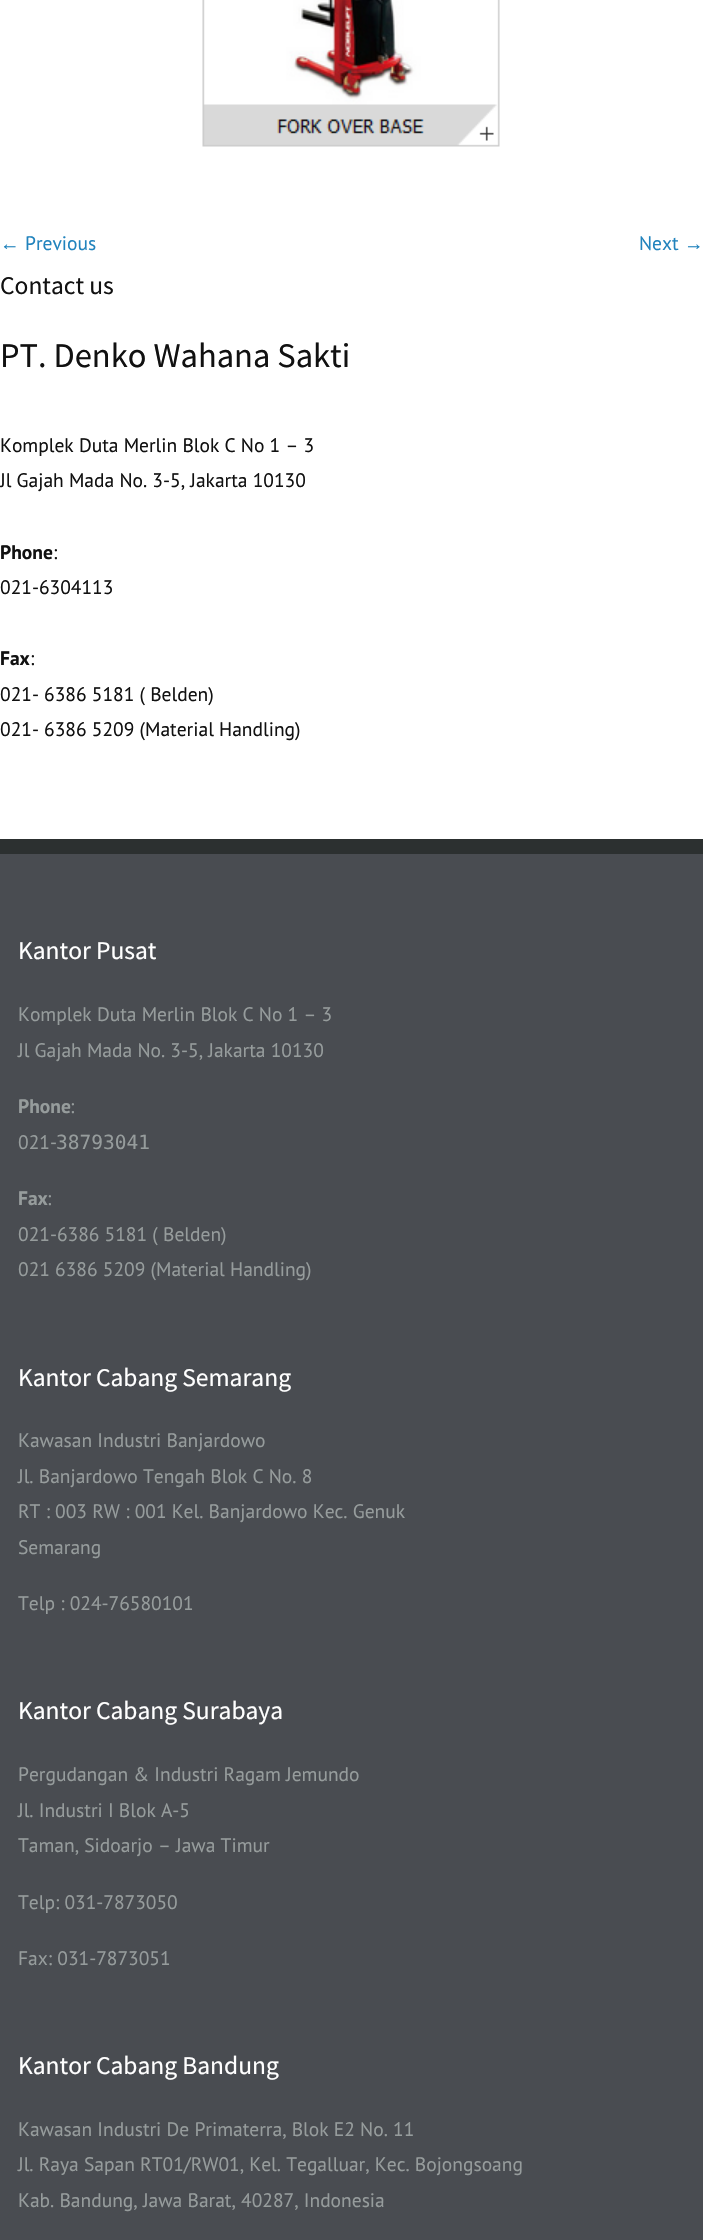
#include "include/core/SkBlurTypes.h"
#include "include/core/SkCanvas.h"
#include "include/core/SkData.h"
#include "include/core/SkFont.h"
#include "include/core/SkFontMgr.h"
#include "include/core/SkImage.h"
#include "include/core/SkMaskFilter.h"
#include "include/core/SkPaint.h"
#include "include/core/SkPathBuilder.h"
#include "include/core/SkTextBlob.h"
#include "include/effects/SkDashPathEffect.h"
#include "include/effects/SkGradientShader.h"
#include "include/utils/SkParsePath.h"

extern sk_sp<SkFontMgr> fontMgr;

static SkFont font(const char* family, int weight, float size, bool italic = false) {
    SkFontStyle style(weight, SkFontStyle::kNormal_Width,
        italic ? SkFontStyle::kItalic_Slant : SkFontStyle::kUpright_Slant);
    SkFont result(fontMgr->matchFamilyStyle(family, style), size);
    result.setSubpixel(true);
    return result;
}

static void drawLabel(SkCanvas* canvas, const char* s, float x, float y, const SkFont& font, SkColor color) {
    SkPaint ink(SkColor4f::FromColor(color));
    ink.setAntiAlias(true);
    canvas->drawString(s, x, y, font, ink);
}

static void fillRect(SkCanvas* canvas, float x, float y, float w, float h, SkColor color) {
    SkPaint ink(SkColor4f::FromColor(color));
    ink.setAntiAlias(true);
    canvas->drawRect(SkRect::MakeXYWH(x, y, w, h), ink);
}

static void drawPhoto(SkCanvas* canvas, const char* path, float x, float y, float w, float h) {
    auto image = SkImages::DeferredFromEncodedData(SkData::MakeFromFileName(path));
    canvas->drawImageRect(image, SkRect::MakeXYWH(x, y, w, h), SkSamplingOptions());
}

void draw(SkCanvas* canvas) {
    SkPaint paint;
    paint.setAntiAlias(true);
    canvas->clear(0xFFFFFFFF);
    drawPhoto(canvas, "assets/img1.png", 202, 0, 298, 147);
    SkFont font1 = font("Liberation Sans", 400, 19.5f);
    drawLabel(canvas, "←", 0, 250, font1, 0xFF2183BD);
    SkFont font2 = font("PT Sans", 400, 19.5f);
    drawLabel(canvas, "Previous", 25, 250, font2, 0xFF2183BD);
    drawLabel(canvas, "Next", 639, 250, font2, 0xFF2183BD);
    drawLabel(canvas, "→", 684, 250, font1, 0xFF2183BD);
    SkFont font3 = font("Source Sans Pro", 400, 25.5f);
    drawLabel(canvas, "Contact us", 0, 294, font3, 0xFF111111);
    SkFont font4 = font("Source Sans Pro", 400, 34.5f);
    drawLabel(canvas, "PT. Denko Wahana Sakti", 0, 367, font4, 0xFF111111);
    drawLabel(canvas, "Komplek Duta Merlin Blok C No 1 – 3", 0, 452, font2, 0xFF111111);
    drawLabel(canvas, "Jl Gajah Mada No. 3-5, Jakarta 10130", 0, 487, font2, 0xFF111111);
    SkFont font5 = font("PT Sans", 700, 19.5f);
    drawLabel(canvas, "Phone", 0, 559, font5, 0xFF111111);
    drawLabel(canvas, ":", 53, 559, font2, 0xFF111111);
    drawLabel(canvas, "021-6304113", 0, 594, font2, 0xFF111111);
    drawLabel(canvas, "Fax", 0, 665, font5, 0xFF111111);
    drawLabel(canvas, ":", 30, 665, font2, 0xFF111111);
    drawLabel(canvas, "021- 6386 5181 ( Belden)", 0, 701, font2, 0xFF111111);
    drawLabel(canvas, "021- 6386 5209 (Material Handling)", 0, 736, font2, 0xFF111111);
    fillRect(canvas, 0, 854, 703, 1386, 0xFF494C51);
    fillRect(canvas, 0, 839, 703, 15, 0xFF2C3030);
    drawLabel(canvas, "Kantor Pusat", 18, 959, font3, 0xFFFFFFFF);
    drawLabel(canvas, "Komplek Duta Merlin Blok C No 1 – 3", 18, 1021, font2, 0xFF969C9C);
    drawLabel(canvas, "Jl Gajah Mada No. 3-5, Jakarta 10130", 18, 1057, font2, 0xFF969C9C);
    drawLabel(canvas, "Phone", 18, 1113, font5, 0xFF969C9C);
    drawLabel(canvas, ":", 70, 1113, font2, 0xFF969C9C);
    drawLabel(canvas, "021-", 18, 1149, font2, 0xFF969C9C);
    SkFont font6 = font("DejaVu Sans Mono", 400, 19.5f);
    drawLabel(canvas, "38793041", 56, 1149, font6, 0xFF969C9C);
    drawLabel(canvas, "Fax", 18, 1205, font5, 0xFF969C9C);
    drawLabel(canvas, ":", 47, 1205, font2, 0xFF969C9C);
    drawLabel(canvas, "021-6386 5181 ( Belden)", 18, 1241, font2, 0xFF969C9C);
    drawLabel(canvas, "021 6386 5209 (Material Handling)", 18, 1276, font2, 0xFF969C9C);
    drawLabel(canvas, "Kantor Cabang Semarang", 18, 1386, font3, 0xFFFFFFFF);
    drawLabel(canvas, "Kawasan Industri Banjardowo", 18, 1447, font2, 0xFF969C9C);
    drawLabel(canvas, "Jl. Banjardowo Tengah Blok C No. 8", 18, 1483, font2, 0xFF969C9C);
    drawLabel(canvas, "RT : 003 RW : 001 Kel. Banjardowo Kec. Genuk", 18, 1518, font2, 0xFF969C9C);
    drawLabel(canvas, "Semarang", 18, 1554, font2, 0xFF969C9C);
    drawLabel(canvas, "Telp : 024-76580101", 18, 1610, font2, 0xFF969C9C);
    drawLabel(canvas, "Kantor Cabang Surabaya", 18, 1719, font3, 0xFFFFFFFF);
    drawLabel(canvas, "Pergudangan & Industri Ragam Jemundo", 18, 1781, font2, 0xFF969C9C);
    drawLabel(canvas, "Jl. Industri I Blok A-5", 18, 1817, font2, 0xFF969C9C);
    drawLabel(canvas, "Taman, Sidoarjo – Jawa Timur", 18, 1852, font2, 0xFF969C9C);
    drawLabel(canvas, "Telp: 031-7873050", 18, 1909, font2, 0xFF969C9C);
    drawLabel(canvas, "Fax: 031-7873051", 18, 1965, font2, 0xFF969C9C);
    drawLabel(canvas, "Kantor Cabang Bandung", 18, 2074, font3, 0xFFFFFFFF);
    drawLabel(canvas, "Kawasan Industri De Primaterra, Blok E2 No. 11", 18, 2136, font2, 0xFF969C9C);
    drawLabel(canvas, "Jl. Raya Sapan RT01/RW01, Kel. Tegalluar, Kec. Bojongsoang", 18, 2171, font2, 0xFF969C9C);
    drawLabel(canvas, "Kab. Bandung, Jawa Barat, 40287, Indonesia", 18, 2207, font2, 0xFF969C9C);
}
